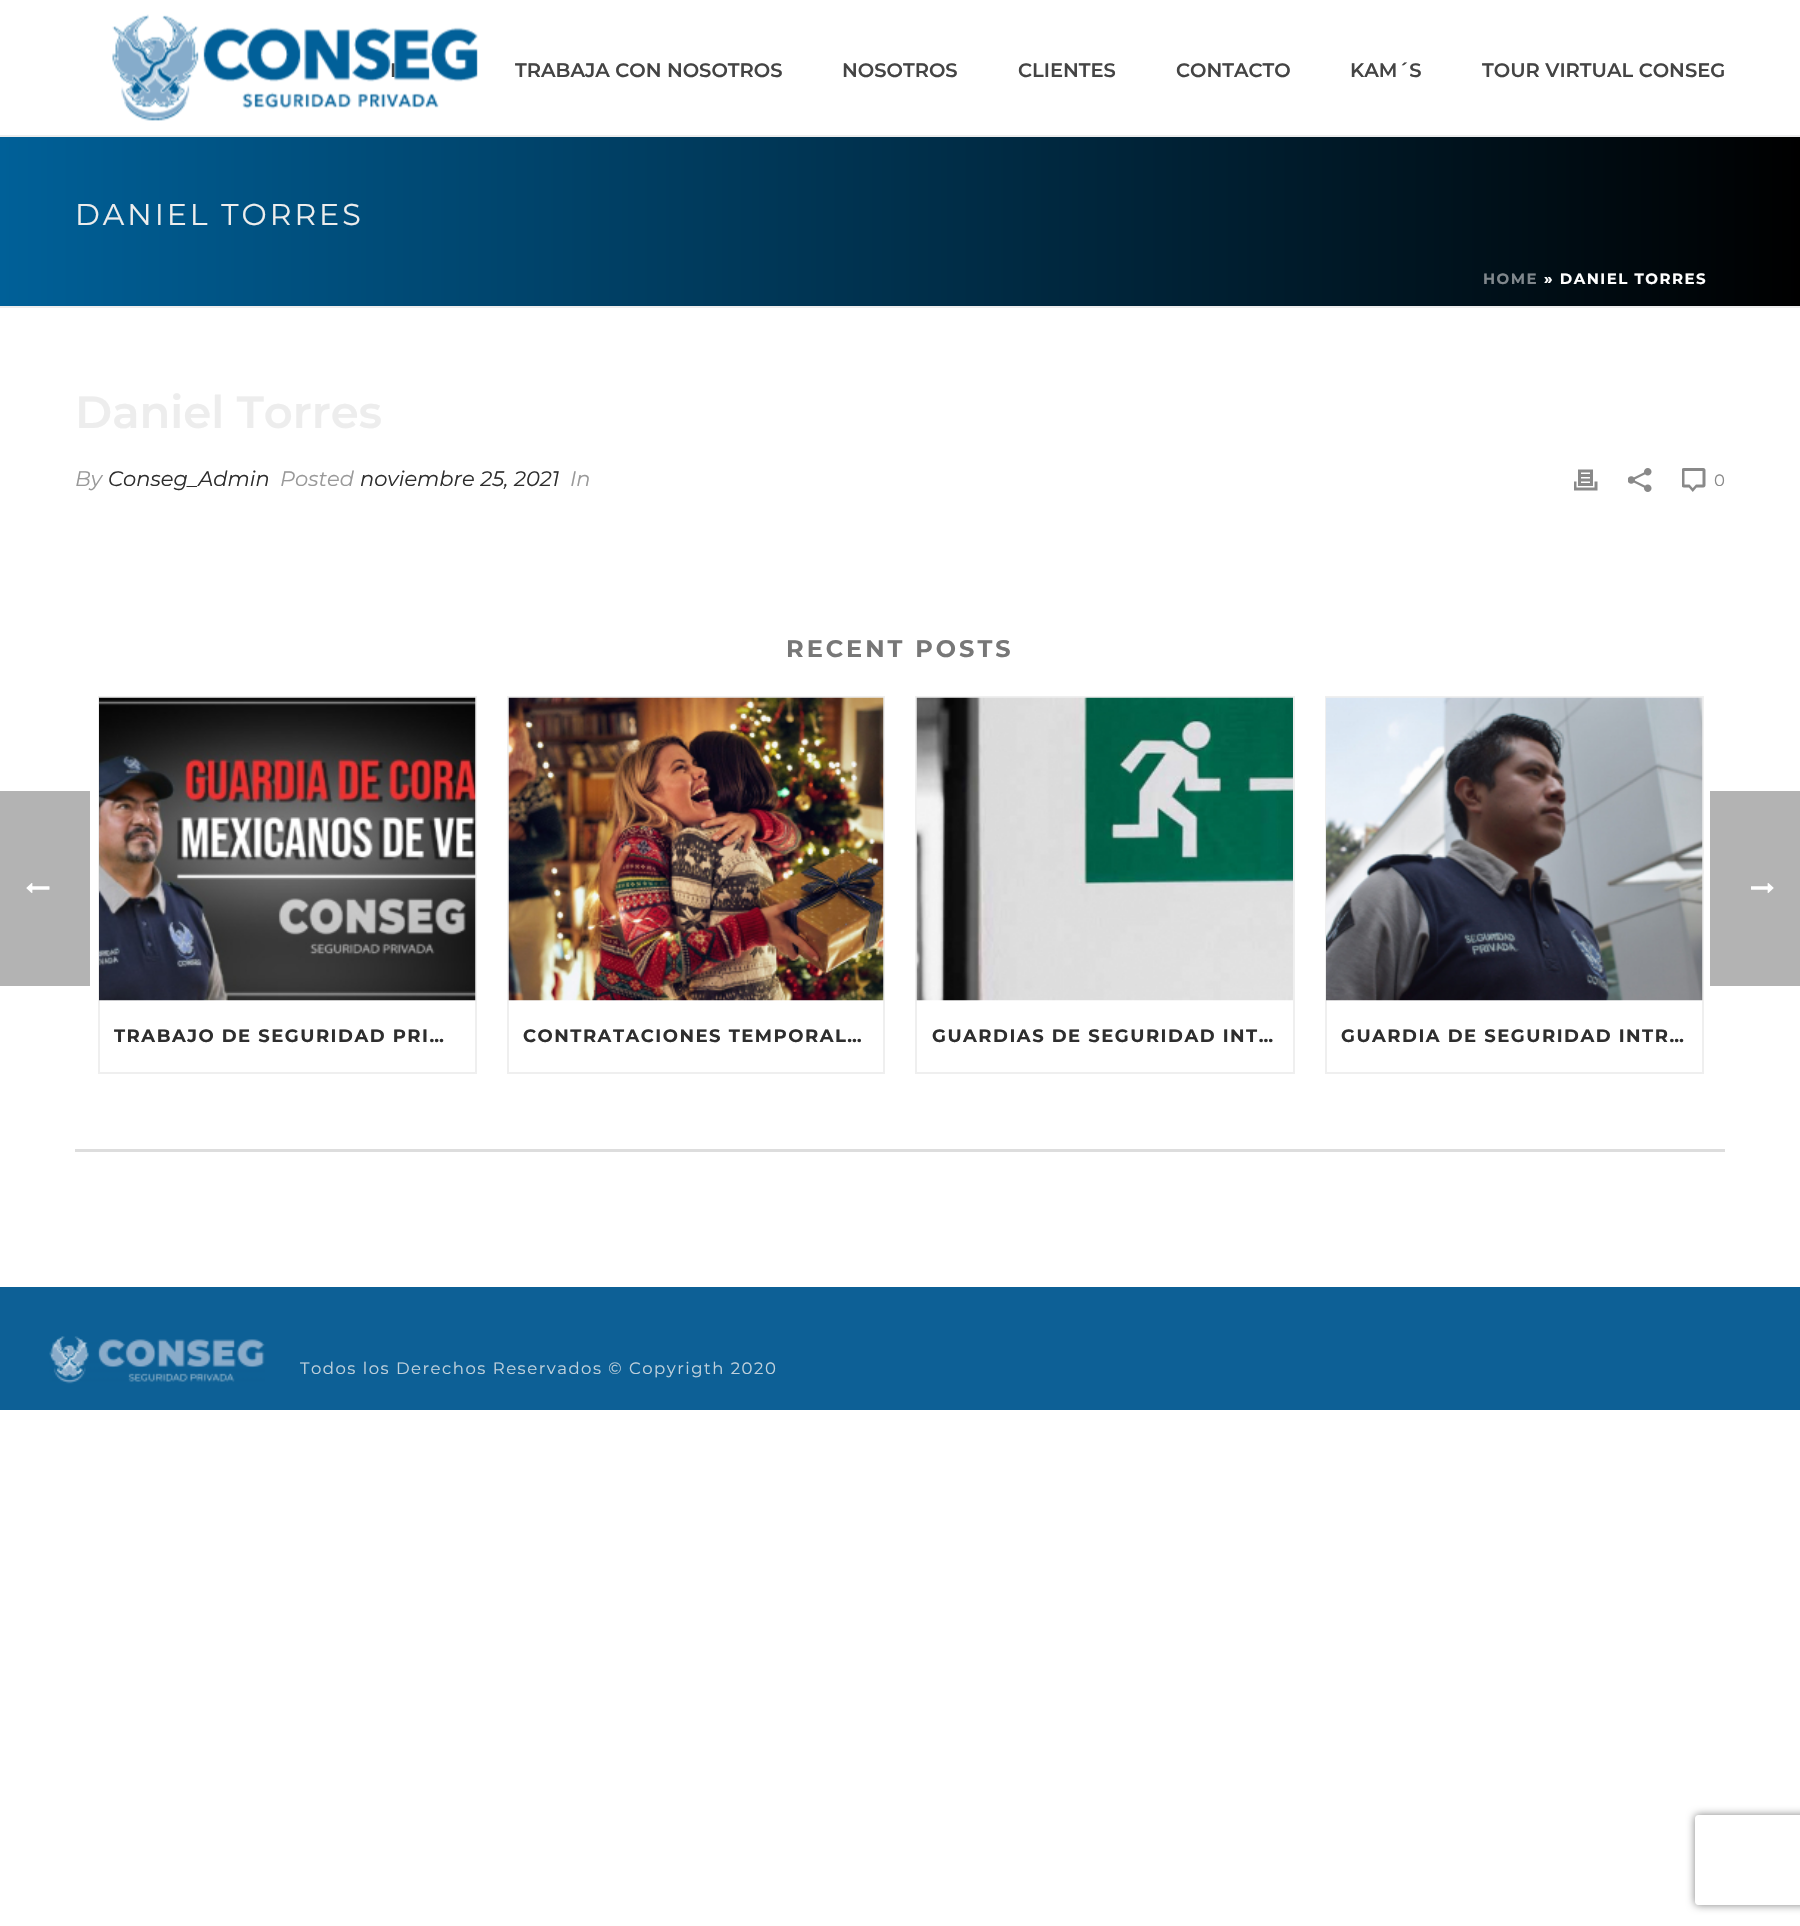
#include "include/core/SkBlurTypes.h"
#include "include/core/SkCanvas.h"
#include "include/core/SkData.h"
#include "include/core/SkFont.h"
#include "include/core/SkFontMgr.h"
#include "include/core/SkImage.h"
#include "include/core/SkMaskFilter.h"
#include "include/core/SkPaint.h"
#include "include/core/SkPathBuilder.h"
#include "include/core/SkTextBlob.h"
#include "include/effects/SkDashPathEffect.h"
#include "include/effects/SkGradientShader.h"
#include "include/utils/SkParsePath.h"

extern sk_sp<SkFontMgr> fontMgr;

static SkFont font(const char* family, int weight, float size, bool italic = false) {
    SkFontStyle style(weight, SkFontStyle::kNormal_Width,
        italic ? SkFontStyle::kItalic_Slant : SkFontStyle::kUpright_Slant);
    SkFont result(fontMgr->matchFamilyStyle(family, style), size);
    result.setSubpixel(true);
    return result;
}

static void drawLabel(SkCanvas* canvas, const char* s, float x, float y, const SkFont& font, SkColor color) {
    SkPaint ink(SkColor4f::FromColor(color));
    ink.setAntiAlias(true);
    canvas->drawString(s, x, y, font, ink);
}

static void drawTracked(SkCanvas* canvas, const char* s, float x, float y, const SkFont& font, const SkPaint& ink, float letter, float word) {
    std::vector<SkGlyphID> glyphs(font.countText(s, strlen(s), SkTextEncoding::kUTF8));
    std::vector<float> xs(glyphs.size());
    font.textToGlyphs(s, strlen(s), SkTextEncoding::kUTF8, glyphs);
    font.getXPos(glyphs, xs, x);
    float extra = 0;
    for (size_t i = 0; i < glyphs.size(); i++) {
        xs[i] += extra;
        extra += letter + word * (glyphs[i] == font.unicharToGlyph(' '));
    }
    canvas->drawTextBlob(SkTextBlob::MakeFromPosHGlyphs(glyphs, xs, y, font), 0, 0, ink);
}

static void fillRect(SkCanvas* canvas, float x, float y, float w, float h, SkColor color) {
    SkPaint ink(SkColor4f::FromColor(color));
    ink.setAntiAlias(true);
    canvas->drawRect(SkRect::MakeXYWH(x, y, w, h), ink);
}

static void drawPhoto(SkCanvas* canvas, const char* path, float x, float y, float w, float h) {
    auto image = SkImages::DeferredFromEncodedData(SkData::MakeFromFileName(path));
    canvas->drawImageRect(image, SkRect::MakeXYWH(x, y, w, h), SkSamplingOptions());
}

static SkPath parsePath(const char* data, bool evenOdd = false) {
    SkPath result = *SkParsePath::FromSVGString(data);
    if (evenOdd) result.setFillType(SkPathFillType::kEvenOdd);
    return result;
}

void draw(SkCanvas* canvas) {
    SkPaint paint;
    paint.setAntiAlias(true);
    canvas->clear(0xFFFFFFFF);
    fillRect(canvas, 0, 791, 90, 195, 0xFFB3B3B3);
    drawPhoto(canvas, "assets/img1.png", 26, 883, 24, 10);
    {
        const SkColor colors[] = {0xFF006098, 0xFF000000};
        const float stops[] = {0, 1};
        const SkPoint ends[] = {{0, 153}, {1800, 153}};
        paint.setShader(SkGradientShader::MakeLinear(ends, colors, stops, 2, SkTileMode::kClamp));
        paint.setAlpha(255);
    }
    canvas->drawRect(SkRect::MakeXYWH(0, 137, 1800, 169), paint);
    fillRect(canvas, 0, 306, 1800, 2, 0xFFEDEDED);
    fillRect(canvas, 0, 135, 1800, 2, 0xFFEDEDED);
    SkFont font1 = font("Montserrat", 600, 19.5f);
    drawLabel(canvas, "I", 390, 77, font1, 0xFF444444);
    drawPhoto(canvas, "assets/img2.png", 112, 14, 366, 107);
    drawLabel(canvas, "TRABAJA CON NOSOTROS", 515, 77, font1, 0xFF444444);
    drawLabel(canvas, "NOSOTROS", 842, 77, font1, 0xFF444444);
    drawLabel(canvas, "CLIENTES", 1018, 77, font1, 0xFF444444);
    drawLabel(canvas, "CONTACTO", 1176, 77, font1, 0xFF444444);
    drawLabel(canvas, "KAM´S", 1350, 77, font1, 0xFF444444);
    drawLabel(canvas, "TOUR VIRTUAL CONSEG", 1482, 77, font1, 0xFF444444);
    SkFont font2 = font("Montserrat", 400, 30);
    paint.setShader(nullptr);
    paint.setColor(0xFFEDEDED);
    drawTracked(canvas, "DANIEL TORRES", 75, 225, font2, paint, 3, 0);
    SkFont font3 = font("Montserrat", 700, 15);
    paint.setColor(0xFF80878C);
    drawTracked(canvas, "HOME", 1483, 284, font3, paint, 1.5f, 0);
    paint.setColor(0xFFFFFFFF);
    drawTracked(canvas, "» DANIEL TORRES", 1544, 284, font3, paint, 1.5f, 0);
    SkFont font4 = font("Montserrat", 600, 45);
    drawLabel(canvas, "Daniel Torres", 75, 428, font4, 0xFFEDEDED);
    SkFont font5 = font("Montserrat", 400, 21, true);
    drawLabel(canvas, "By", 75, 486, font5, 0xFF999999);
    drawLabel(canvas, "Conseg_Admin", 108, 486, font5, 0xFF2E2E2E);
    drawLabel(canvas, "Posted", 280, 486, font5, 0xFF999999);
    drawLabel(canvas, "noviembre 25, 2021", 360, 486, font5, 0xFF2E2E2E);
    drawLabel(canvas, "In", 570, 486, font5, 0xFF999999);
    drawPhoto(canvas, "assets/img3.png", 1574, 469, 24, 22);
    drawPhoto(canvas, "assets/img4.png", 1628, 468, 24, 24);
    drawPhoto(canvas, "assets/img5.png", 1682, 468, 24, 24);
    SkFont font6 = font("Montserrat", 400, 16.5f);
    drawLabel(canvas, "0", 1714, 486, font6, 0xFF898989);
    fillRect(canvas, 75, 1149, 1650, 3, 0xFFDDDDDD);
    SkFont font7 = font("Montserrat", 700, 24);
    paint.setColor(0xFF777777);
    drawTracked(canvas, "RECENT POSTS", 786, 657, font7, paint, 3, 0);
    paint.setStroke(true);
    paint.setStrokeWidth(2);
    paint.setColor(0xFFEFEFEF);
    canvas->drawRect(SkRect::MakeXYWH(99, 697, 377, 376), paint);
    drawPhoto(canvas, "assets/img6.png", 99, 697, 377, 304);
    SkFont font8 = font("Montserrat", 700, 18);
    paint.setStroke(false);
    paint.setColor(0xFF2E2E2E);
    drawTracked(canvas, "TRABAJO DE SEGURIDAD PRI…", 114, 1042, font8, paint, 1.5f, 0);
    paint.setStroke(true);
    paint.setColor(0xFFEFEFEF);
    canvas->drawRect(SkRect::MakeXYWH(508, 697, 376, 376), paint);
    drawPhoto(canvas, "assets/img7.png", 508, 697, 376, 304);
    paint.setStroke(false);
    paint.setColor(0xFF2E2E2E);
    drawTracked(canvas, "CONTRATACIONES TEMPORAL…", 523, 1042, font8, paint, 1.5f, 0);
    paint.setStroke(true);
    paint.setColor(0xFFEFEFEF);
    canvas->drawRect(SkRect::MakeXYWH(916, 697, 378, 376), paint);
    drawPhoto(canvas, "assets/img8.png", 916, 697, 377, 304);
    paint.setStroke(false);
    paint.setColor(0xFF2E2E2E);
    drawTracked(canvas, "GUARDIAS DE SEGURIDAD INT…", 932, 1042, font8, paint, 1.5f, 0);
    paint.setStroke(true);
    paint.setColor(0xFFEFEFEF);
    canvas->drawRect(SkRect::MakeXYWH(1326, 697, 377, 376), paint);
    drawPhoto(canvas, "assets/img9.png", 1326, 697, 377, 304);
    paint.setStroke(false);
    paint.setColor(0xFF2E2E2E);
    drawTracked(canvas, "GUARDIA DE SEGURIDAD INTR…", 1341, 1042, font8, paint, 1.5f, 0);
    fillRect(canvas, 0, 1287, 1800, 123, 0xFF0D6096);
    drawPhoto(canvas, "assets/img10.png", 49, 1336, 216, 48);
    paint.setColor(0xFFC0D1DC);
    drawTracked(canvas, "Todos los Derechos Reservados © Copyrigth 2020", 300, 1374, font6, paint, 1.5f, 0);
    fillRect(canvas, 1710, 791, 90, 195, 0xFFB3B3B3);
    drawPhoto(canvas, "assets/img11.png", 1751, 883, 23, 10);
    canvas->save();
    canvas->clipPath(parsePath("M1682 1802H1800V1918H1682ZM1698 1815H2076C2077.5 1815 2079 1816.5 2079 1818V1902C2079 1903.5 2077.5 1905 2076 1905H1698C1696.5 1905 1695 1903.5 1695 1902V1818C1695 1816.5 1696.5 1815 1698 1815Z", true), true);
    paint.setColor(0xFF808080);
    paint.setMaskFilter(SkMaskFilter::MakeBlur(kNormal_SkBlurStyle, 4));
    canvas->drawRoundRect(SkRect::MakeXYWH(1695, 1815, 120, 90), 3, 3, paint);
    paint.setMaskFilter(nullptr);
    canvas->restore();
}
